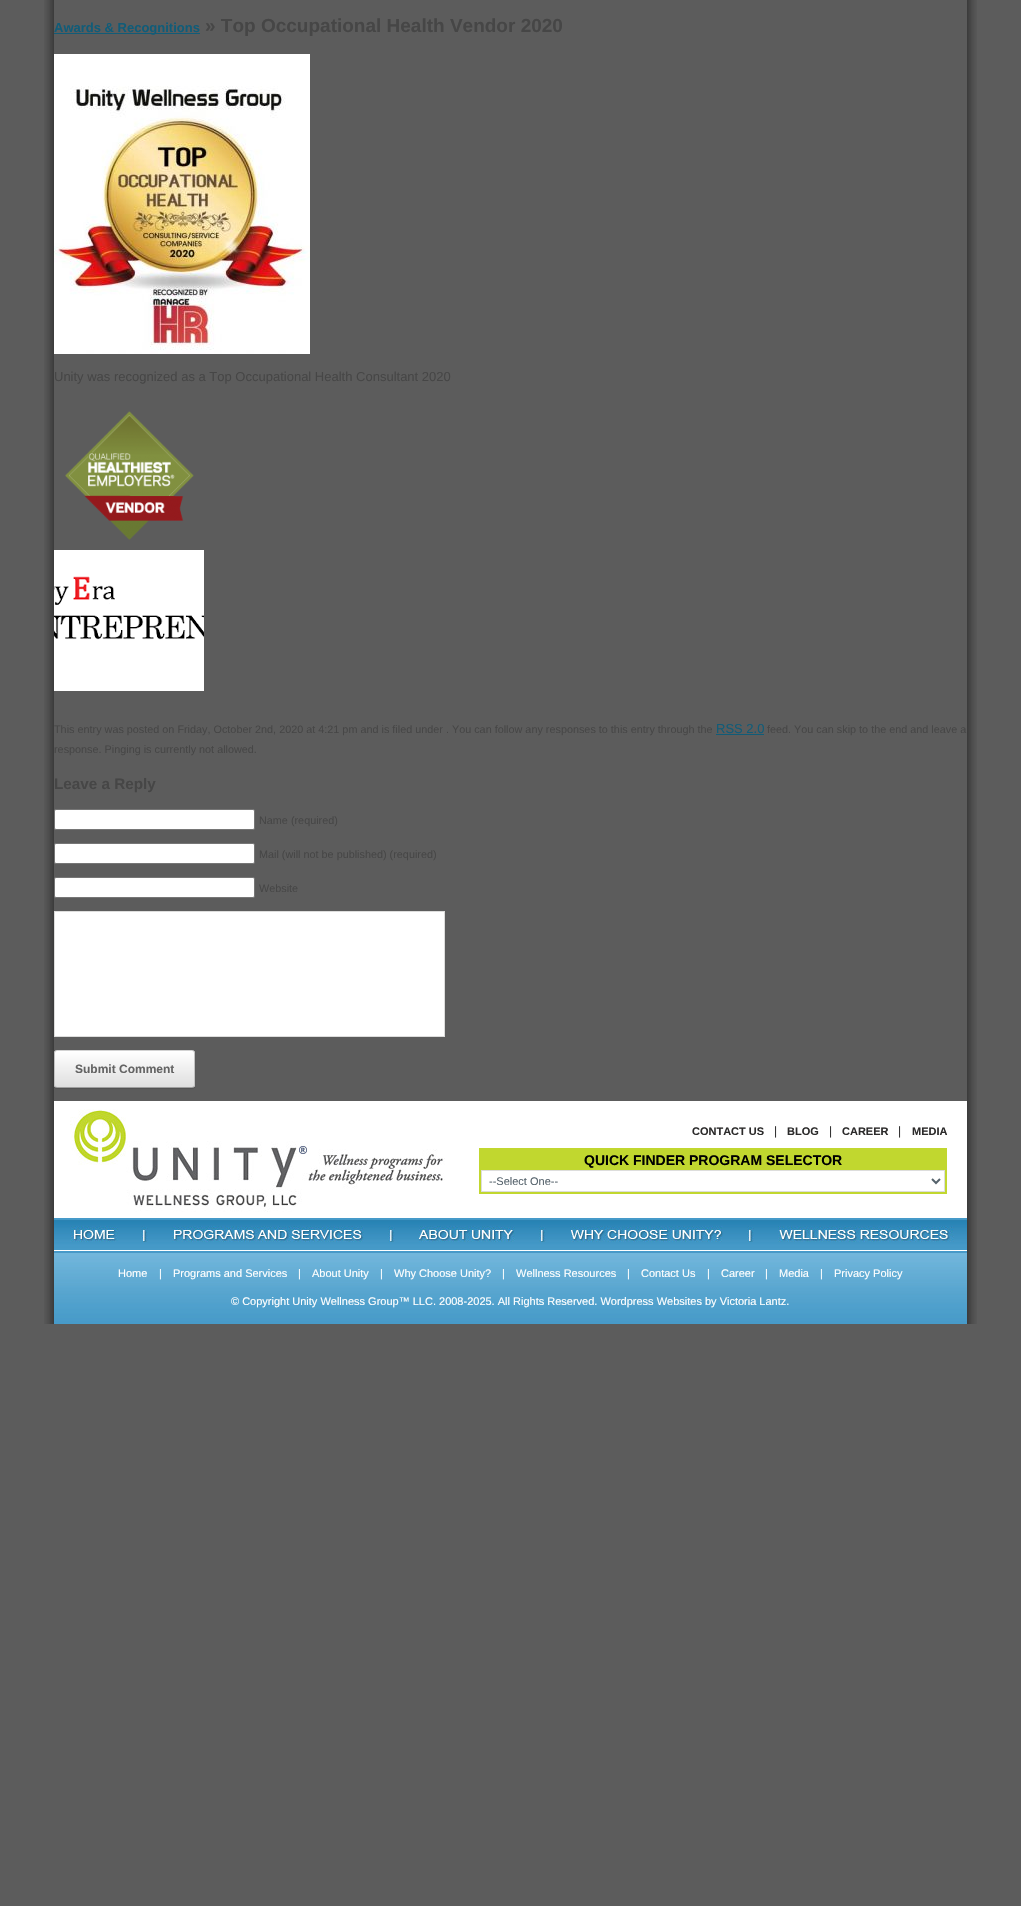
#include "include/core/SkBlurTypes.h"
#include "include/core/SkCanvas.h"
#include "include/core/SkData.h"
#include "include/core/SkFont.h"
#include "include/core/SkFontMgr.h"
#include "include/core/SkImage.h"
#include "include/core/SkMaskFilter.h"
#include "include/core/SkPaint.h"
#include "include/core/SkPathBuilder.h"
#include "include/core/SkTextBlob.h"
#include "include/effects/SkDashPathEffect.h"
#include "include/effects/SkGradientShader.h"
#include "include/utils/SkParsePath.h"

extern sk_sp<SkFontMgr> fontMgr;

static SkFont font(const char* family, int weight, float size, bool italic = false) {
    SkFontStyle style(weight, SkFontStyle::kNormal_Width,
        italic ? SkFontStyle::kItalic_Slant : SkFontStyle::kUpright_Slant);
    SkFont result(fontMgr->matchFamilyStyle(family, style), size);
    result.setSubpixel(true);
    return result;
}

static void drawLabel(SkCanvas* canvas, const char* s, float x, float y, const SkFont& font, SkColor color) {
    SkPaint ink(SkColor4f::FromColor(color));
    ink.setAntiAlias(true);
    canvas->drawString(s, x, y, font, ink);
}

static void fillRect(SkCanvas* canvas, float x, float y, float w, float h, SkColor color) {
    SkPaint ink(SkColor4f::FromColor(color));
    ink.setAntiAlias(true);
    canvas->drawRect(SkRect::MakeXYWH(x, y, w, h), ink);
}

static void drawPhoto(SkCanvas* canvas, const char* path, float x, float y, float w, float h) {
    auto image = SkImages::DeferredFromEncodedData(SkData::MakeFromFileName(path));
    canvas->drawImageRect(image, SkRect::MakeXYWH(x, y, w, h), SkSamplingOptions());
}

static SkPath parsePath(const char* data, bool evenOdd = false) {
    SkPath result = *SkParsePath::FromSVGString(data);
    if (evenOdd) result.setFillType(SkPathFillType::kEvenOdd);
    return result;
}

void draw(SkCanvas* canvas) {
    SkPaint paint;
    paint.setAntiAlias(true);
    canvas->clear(0xFF5C5C5C);
    drawPhoto(canvas, "assets/img1.png", 44, 0, 10, 1324);
    fillRect(canvas, 54, 33, 146, 1, 0xFF115C78);
    SkFont font1 = font("Liberation Sans", 700, 13);
    drawLabel(canvas, "Awards & Recognitions", 54, 32, font1, 0xFF115C78);
    SkFont font2 = font("Liberation Sans", 700, 19);
    drawLabel(canvas, "» Top Occupational Health Vendor 2020", 205, 32, font2, 0xFF464646);
    drawPhoto(canvas, "assets/img2.png", 54, 54, 256, 300);
    SkFont font3 = font("Liberation Sans", 400, 13);
    drawLabel(canvas, "Unity was recognized as a Top Occupational Health Consultant 2020", 54, 381, font3, 0xFF464646);
    drawPhoto(canvas, "assets/img3.png", 65, 411, 129, 129);
    drawPhoto(canvas, "assets/img4.png", 54, 550, 150, 141);
    SkFont font4 = font("Liberation Sans", 400, 10.83f);
    drawLabel(canvas, "This entry was posted on Friday, October 2nd, 2020 at 4:21 pm and is filed under . You can follow any responses to this entry through the", 54, 733, font4, 0xFF464646);
    fillRect(canvas, 716, 734, 48, 1, 0xFF115C78);
    drawLabel(canvas, "RSS 2.0", 716, 733, font3, 0xFF115C78);
    drawLabel(canvas, "feed. You can skip to the end and leave a", 767, 733, font4, 0xFF464646);
    drawLabel(canvas, "response. Pinging is currently not allowed.", 54, 753, font4, 0xFF464646);
    SkFont font5 = font("Liberation Sans", 700, 15.25f);
    drawLabel(canvas, "Leave a Reply", 54, 789, font5, 0xFF464646);
    paint.setColor(0xFFFFFFFF);
    canvas->drawRoundRect(SkRect::MakeXYWH(54.5f, 809.5f, 200, 20), 1.5f, 1.5f, paint);
    paint.setStroke(true);
    paint.setStrokeWidth(1);
    paint.setColor(0xFF767676);
    canvas->drawRoundRect(SkRect::MakeXYWH(54.5f, 809.5f, 200, 20), 1.5f, 1.5f, paint);
    drawLabel(canvas, "Name (required)", 259, 824, font4, 0xFF464646);
    paint.setStroke(false);
    paint.setColor(0xFFFFFFFF);
    canvas->drawRoundRect(SkRect::MakeXYWH(54.5f, 843.5f, 200, 20), 1.5f, 1.5f, paint);
    paint.setStroke(true);
    paint.setColor(0xFF767676);
    canvas->drawRoundRect(SkRect::MakeXYWH(54.5f, 843.5f, 200, 20), 1.5f, 1.5f, paint);
    drawLabel(canvas, "Mail (will not be published) (required)", 259, 858, font4, 0xFF464646);
    paint.setStroke(false);
    paint.setColor(0xFFFFFFFF);
    canvas->drawRoundRect(SkRect::MakeXYWH(54.5f, 877.5f, 200, 20), 1.5f, 1.5f, paint);
    paint.setStroke(true);
    paint.setColor(0xFF767676);
    canvas->drawRoundRect(SkRect::MakeXYWH(54.5f, 877.5f, 200, 20), 1.5f, 1.5f, paint);
    drawLabel(canvas, "Website", 259, 892, font4, 0xFF464646);
    paint.setStroke(false);
    paint.setColor(0xFFFFFFFF);
    canvas->drawRect(SkRect::MakeXYWH(54.5f, 911.5f, 390, 125), paint);
    paint.setStroke(true);
    paint.setColor(0xFFDDDDDC);
    canvas->drawRect(SkRect::MakeXYWH(54.5f, 911.5f, 390, 125), paint);
    paint.setStroke(false);
    paint.setColor(0x1F000000);
    paint.setMaskFilter(SkMaskFilter::MakeBlur(kNormal_SkBlurStyle, 0.5f));
    canvas->drawRoundRect(SkRect::MakeXYWH(54, 1051, 141, 38), 3, 3, paint);
    paint.setMaskFilter(nullptr);
    canvas->save();
    canvas->clipPath(parsePath("M57 1050H192C193.5 1050 195 1051.5 195 1053V1085C195 1086.5 193.5 1088 192 1088H57C55.5 1088 54 1086.5 54 1085V1053C54 1051.5 55.5 1050 57 1050Z"), true);
    {
        const SkColor colors[] = {0xFFDFDFDF, 0xFFFFFFFF};
        const float stops[] = {0, 1};
        const SkPoint ends[] = {{55, 1087}, {55, 1051}};
        paint.setShader(SkGradientShader::MakeLinear(ends, colors, stops, 2, SkTileMode::kClamp));
        paint.setAlpha(255);
    }
    canvas->drawRect(SkRect::MakeXYWH(54, 1051, 141, 36), paint);
    canvas->restore();
    paint.setStroke(true);
    paint.setShader(nullptr);
    paint.setColor(0xFFD2D2D2);
    canvas->drawPath(parsePath("M55 1051L57 1050.5H192L194 1051"), paint);
    paint.setColor(0xFFC3C3C3);
    canvas->drawPath(parsePath("M194 1051C194 1051.5 194.5 1052.5 194.5 1053V1085C194.5 1085.5 194 1086.5 194 1087"), paint);
    paint.setColor(0xFF9F9F9F);
    canvas->drawPath(parsePath("M194 1087L192 1087.5H57L55 1087"), paint);
    paint.setColor(0xFFC3C3C3);
    canvas->drawPath(parsePath("M55 1087C55 1086.5 54.5 1085.5 54.5 1085V1053C54.5 1052.5 55 1051.5 55 1051"), paint);
    SkFont font6 = font("Liberation Sans", 700, 12);
    drawLabel(canvas, "Submit Comment", 75, 1073, font6, 0xFF646464);
    fillRect(canvas, 54, 1101, 913, 150, 0xFFFFFFFF);
    drawPhoto(canvas, "assets/img5.png", 70, 1109, 375, 103);
    SkFont font7 = font("Liberation Sans", 700, 11);
    drawLabel(canvas, "CONTACT US", 692, 1135, font7, 0xFF2C2B2B);
    SkFont font8 = font("Liberation Sans", 400, 12);
    drawLabel(canvas, "|", 774, 1135, font8, 0xFF2C2B2B);
    drawLabel(canvas, "BLOG", 787, 1135, font7, 0xFF2C2B2B);
    drawLabel(canvas, "|", 829, 1135, font8, 0xFF2C2B2B);
    drawLabel(canvas, "CAREER", 842, 1135, font7, 0xFF2C2B2B);
    drawLabel(canvas, "|", 898, 1135, font8, 0xFF2C2B2B);
    drawLabel(canvas, "MEDIA", 912, 1135, font7, 0xFF2C2B2B);
    fillRect(canvas, 479, 1148, 468, 46, 0xFFC1D72F);
    SkFont font9 = font("Liberation Sans", 700, 14);
    drawLabel(canvas, "QUICK FINDER PROGRAM SELECTOR", 584, 1165, font9, 0xFF000000);
    paint.setStroke(false);
    paint.setColor(0xFFFFFFFF);
    canvas->drawRect(SkRect::MakeXYWH(481.5f, 1170.5f, 463, 21), paint);
    paint.setStroke(true);
    paint.setColor(0xFFDDDDDC);
    canvas->drawRect(SkRect::MakeXYWH(481.5f, 1170.5f, 463, 21), paint);
    paint.setStrokeWidth(2);
    paint.setColor(0xFF56636C);
    canvas->drawPath(parsePath("M932 1179L936 1183L940 1179"), paint);
    SkFont font10 = font("Liberation Sans", 400, 11);
    drawLabel(canvas, "--Select One--", 489, 1185, font10, 0xFF56636C);
    drawPhoto(canvas, "assets/img6.png", 54, 1218, 913, 32);
    drawPhoto(canvas, "assets/img7.png", 70, 1226, 48, 16);
    drawPhoto(canvas, "assets/img8.png", 141, 1226, 7, 16);
    drawPhoto(canvas, "assets/img9.png", 172, 1226, 192, 16);
    drawPhoto(canvas, "assets/img8.png", 388, 1226, 7, 16);
    drawPhoto(canvas, "assets/img10.png", 419, 1226, 96, 16);
    drawPhoto(canvas, "assets/img8.png", 539, 1226, 7, 16);
    drawPhoto(canvas, "assets/img11.png", 570, 1226, 153, 16);
    drawPhoto(canvas, "assets/img8.png", 747, 1226, 7, 16);
    drawPhoto(canvas, "assets/img12.png", 778, 1226, 176, 16);
    drawPhoto(canvas, "assets/img13.png", 54, 1251, 913, 73);
    drawLabel(canvas, "Home", 118, 1277, font10, 0xFFFFFFFF);
    drawLabel(canvas, "|", 159, 1277, font10, 0xFFFFFFFF);
    drawLabel(canvas, "Programs and Services", 173, 1277, font10, 0xFFFFFFFF);
    drawLabel(canvas, "|", 298, 1277, font10, 0xFFFFFFFF);
    drawLabel(canvas, "About Unity", 312, 1277, font10, 0xFFFFFFFF);
    drawLabel(canvas, "|", 380, 1277, font10, 0xFFFFFFFF);
    drawLabel(canvas, "Why Choose Unity?", 394, 1277, font10, 0xFFFFFFFF);
    drawLabel(canvas, "|", 502, 1277, font10, 0xFFFFFFFF);
    drawLabel(canvas, "Wellness Resources", 516, 1277, font10, 0xFFFFFFFF);
    drawLabel(canvas, "|", 627, 1277, font10, 0xFFFFFFFF);
    drawLabel(canvas, "Contact Us", 641, 1277, font10, 0xFFFFFFFF);
    drawLabel(canvas, "|", 707, 1277, font10, 0xFFFFFFFF);
    drawLabel(canvas, "Career", 721, 1277, font10, 0xFFFFFFFF);
    drawLabel(canvas, "|", 765, 1277, font10, 0xFFFFFFFF);
    drawLabel(canvas, "Media", 779, 1277, font10, 0xFFFFFFFF);
    drawLabel(canvas, "|", 820, 1277, font10, 0xFFFFFFFF);
    drawLabel(canvas, "Privacy Policy", 834, 1277, font10, 0xFFFFFFFF);
    drawLabel(canvas, "© Copyright Unity Wellness Group™ LLC. 2008-2025. All Rights Reserved. Wordpress Websites by Victoria Lantz.", 231, 1305, font10, 0xFFFFFFFF);
    drawPhoto(canvas, "assets/img14.png", 967, 0, 10, 1324);
}
